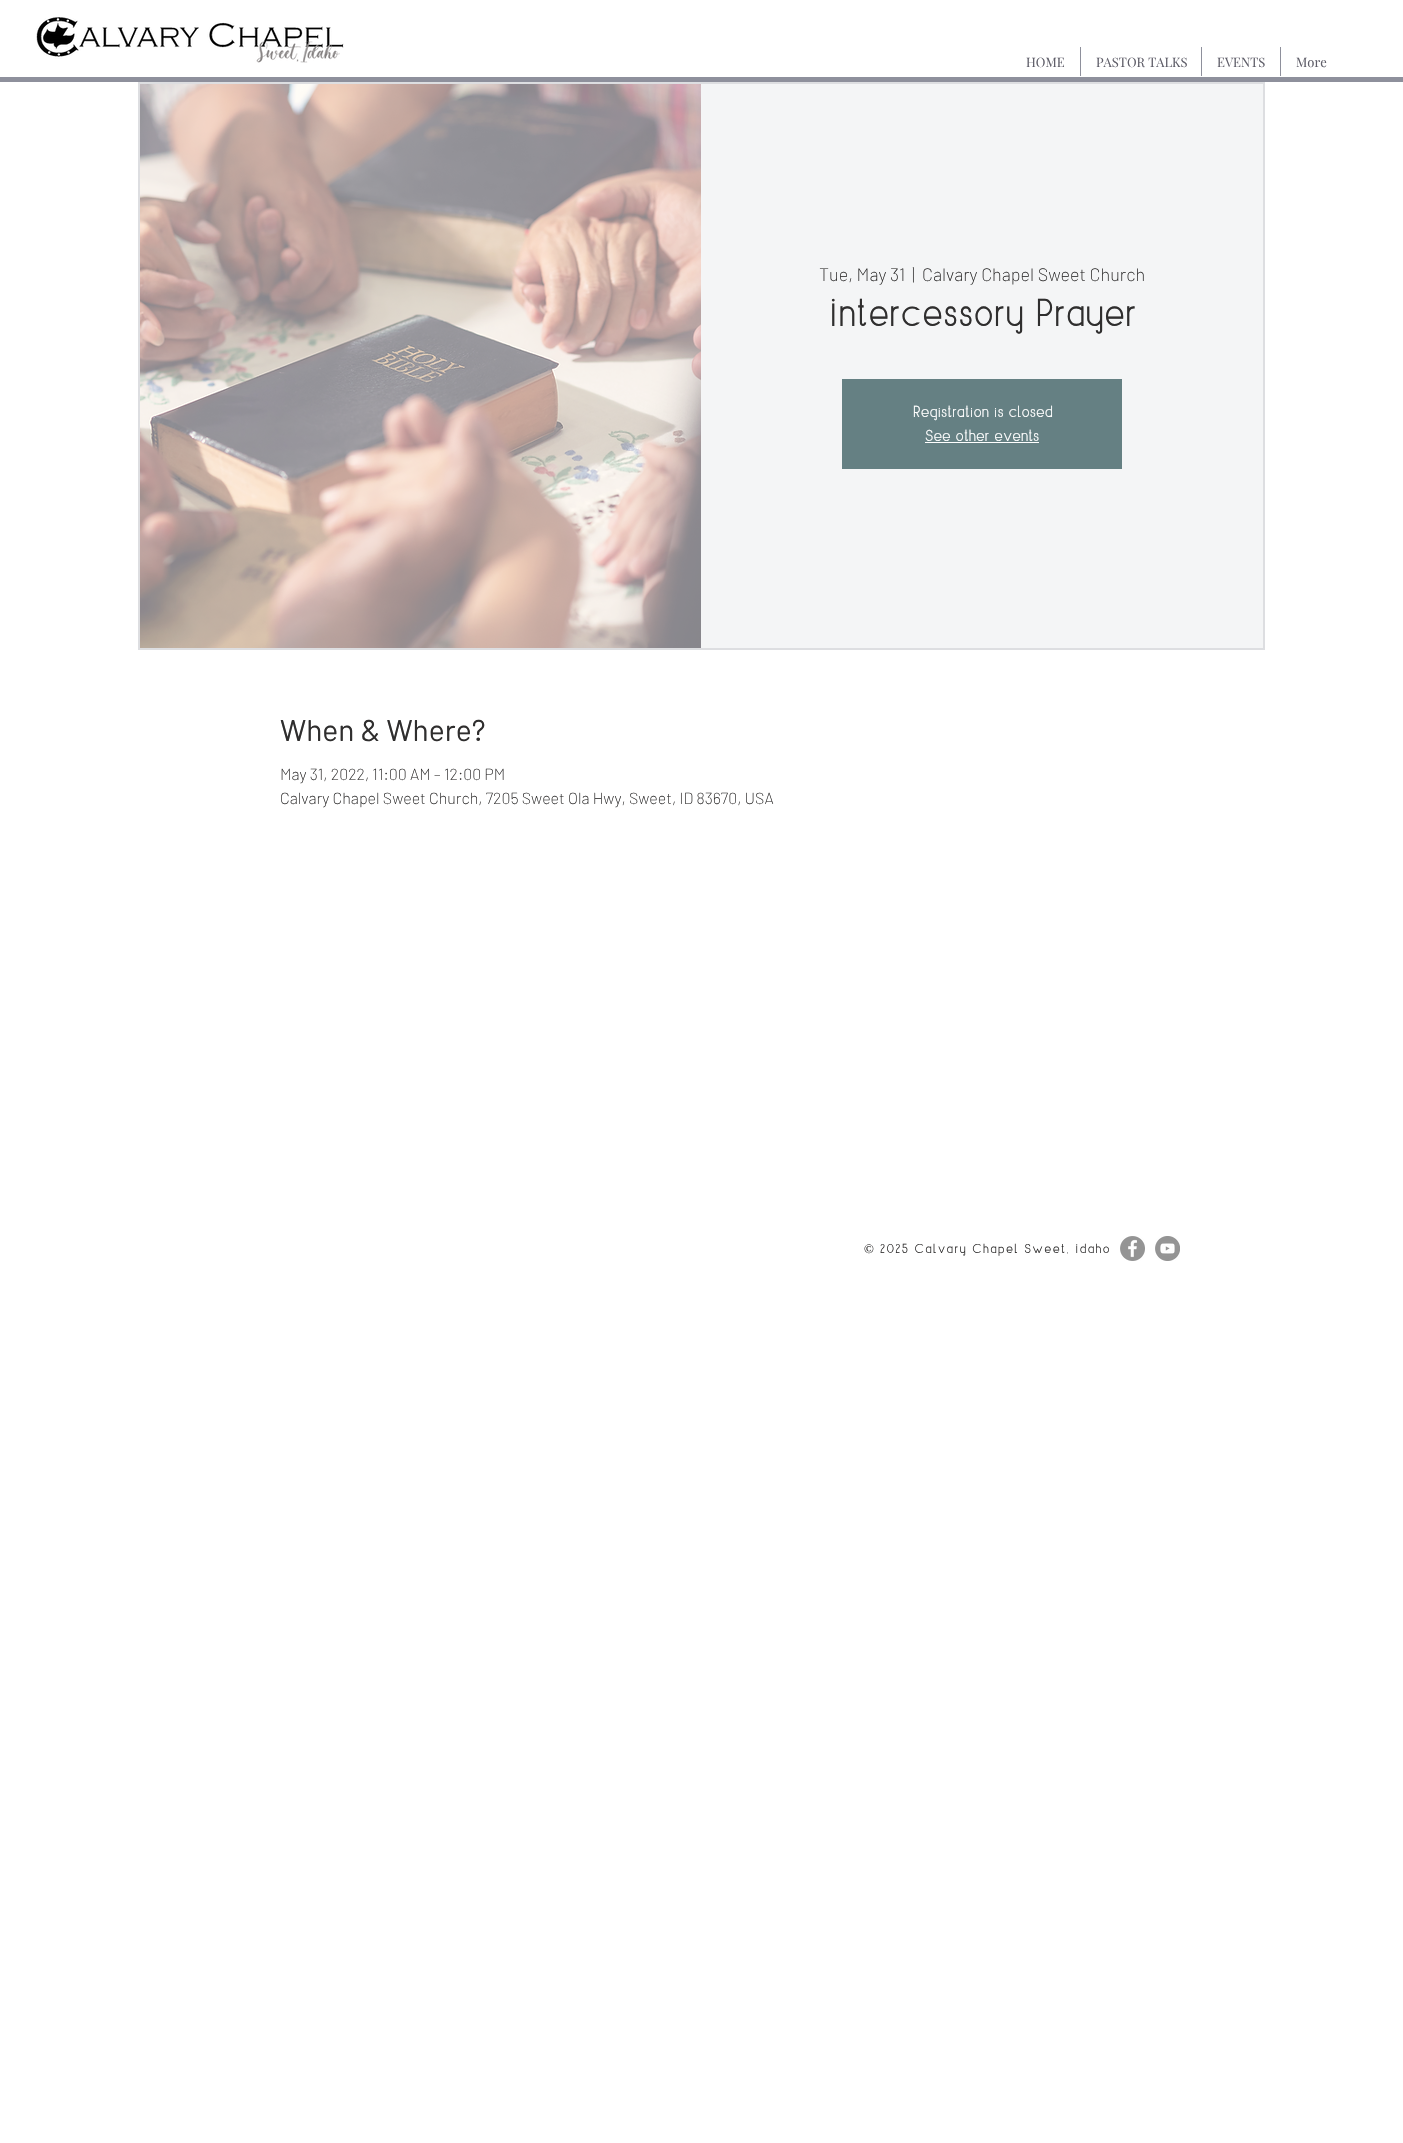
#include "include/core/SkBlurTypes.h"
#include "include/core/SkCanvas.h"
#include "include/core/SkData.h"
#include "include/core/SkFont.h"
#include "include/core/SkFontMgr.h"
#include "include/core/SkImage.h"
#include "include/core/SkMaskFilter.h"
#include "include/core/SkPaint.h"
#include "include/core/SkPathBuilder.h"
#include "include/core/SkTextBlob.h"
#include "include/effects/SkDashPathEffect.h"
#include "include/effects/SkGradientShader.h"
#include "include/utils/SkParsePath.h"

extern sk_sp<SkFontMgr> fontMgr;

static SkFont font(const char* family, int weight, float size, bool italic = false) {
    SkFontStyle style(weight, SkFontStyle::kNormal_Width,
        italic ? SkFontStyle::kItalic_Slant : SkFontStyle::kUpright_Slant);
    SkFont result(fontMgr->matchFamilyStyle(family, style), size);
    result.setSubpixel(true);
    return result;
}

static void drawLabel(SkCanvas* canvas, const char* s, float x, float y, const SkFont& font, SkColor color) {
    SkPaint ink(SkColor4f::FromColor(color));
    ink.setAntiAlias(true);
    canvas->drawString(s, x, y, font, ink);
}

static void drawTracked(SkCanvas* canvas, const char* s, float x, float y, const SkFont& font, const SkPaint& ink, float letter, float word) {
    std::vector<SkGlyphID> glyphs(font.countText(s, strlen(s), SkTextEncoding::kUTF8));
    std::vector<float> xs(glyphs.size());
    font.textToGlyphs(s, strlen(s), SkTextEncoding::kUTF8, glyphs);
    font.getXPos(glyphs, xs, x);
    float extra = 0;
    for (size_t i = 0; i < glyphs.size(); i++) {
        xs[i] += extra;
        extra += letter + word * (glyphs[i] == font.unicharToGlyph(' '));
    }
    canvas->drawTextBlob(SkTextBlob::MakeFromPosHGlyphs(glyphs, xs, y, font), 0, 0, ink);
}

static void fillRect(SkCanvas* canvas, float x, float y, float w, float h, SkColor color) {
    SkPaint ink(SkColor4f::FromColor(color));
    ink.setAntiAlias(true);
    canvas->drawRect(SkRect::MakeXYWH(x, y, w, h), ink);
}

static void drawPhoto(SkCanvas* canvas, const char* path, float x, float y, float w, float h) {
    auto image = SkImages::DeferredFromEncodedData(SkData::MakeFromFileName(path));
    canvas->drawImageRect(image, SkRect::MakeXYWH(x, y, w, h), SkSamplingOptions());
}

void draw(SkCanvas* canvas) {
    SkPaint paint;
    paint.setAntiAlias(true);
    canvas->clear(0xFFFFFFFF);
    drawPhoto(canvas, "assets/img1.png", 36, 17, 308, 46);
    SkFont font1 = font("Playfair Display", 400, 13);
    drawLabel(canvas, "HOME", 1026, 67, font1, 0xFF5F5E69);
    fillRect(canvas, 1080, 47, 1, 29, 0xFF8E909C);
    drawLabel(canvas, "PASTOR TALKS", 1096, 67, font1, 0xFF5F5E69);
    fillRect(canvas, 1201, 47, 1, 29, 0xFF8E909C);
    drawLabel(canvas, "EVENTS", 1217, 67, font1, 0xFF5F5E69);
    fillRect(canvas, 1280, 47, 1, 29, 0xFF8E909C);
    drawLabel(canvas, "More", 1296, 67, font1, 0xFF5F5E69);
    fillRect(canvas, 0, 77, 1403, 5, 0xFF8E909C);
    paint.setStroke(true);
    paint.setStrokeWidth(2);
    paint.setColor(0xFFDDDEE1);
    canvas->drawRect(SkRect::MakeXYWH(139, 83, 1125, 566), paint);
    drawPhoto(canvas, "assets/img2.png", 140, 84, 561, 564);
    fillRect(canvas, 701, 84, 562, 564, 0xFFF4F5F6);
    SkFont font2 = font("Barlow", 200, 18);
    drawLabel(canvas, "Tue, May 31", 819, 281, font2, 0xFF2F2E2E);
    drawLabel(canvas, "|", 912, 281, font2, 0xFF2F2E2E);
    drawLabel(canvas, "Calvary Chapel Sweet Church", 922, 281, font2, 0xFF2F2E2E);
    SkFont font3 = font("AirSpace", 400, 39);
    drawLabel(canvas, "Intercessory Prayer", 828, 326, font3, 0xFF2F2E2E);
    fillRect(canvas, 842, 379, 280, 90, 0xFF658083);
    SkFont font4 = font("AirSpace", 400, 16);
    drawLabel(canvas, "Registration is closed", 912, 417, font4, 0xFFFFFFFF);
    drawLabel(canvas, "See other events", 925, 441, font4, 0xFFFFFFFF);
    fillRect(canvas, 925, 442, 114, 1, 0xFFFFFFFF);
    SkFont font5 = font("Barlow", 400, 30);
    drawLabel(canvas, "When & Where?", 280, 741, font5, 0xFF2F2E2E);
    SkFont font6 = font("Barlow", 200, 16);
    drawLabel(canvas, "May 31, 2022, 11:00 AM – 12:00 PM", 280, 780, font6, 0xFF2F2E2E);
    drawLabel(canvas, "Calvary Chapel Sweet Church, 7205 Sweet Ola Hwy, Sweet, ID 83670, USA", 280, 804, font6, 0xFF2F2E2E);
    SkFont font7 = font("Liberation Serif", 400, 13);
    paint.setStroke(false);
    paint.setColor(0xFF2F2E2E);
    drawTracked(canvas, "©", 864, 1253, font7, paint, 1.3f, 0);
    SkFont font8 = font("AirSpace", 400, 13);
    drawTracked(canvas, "2025 Calvary Chapel Sweet, Idaho", 880, 1253, font8, paint, 1.3f, 0);
    drawPhoto(canvas, "assets/img3.png", 1120, 1236, 25, 25);
    drawPhoto(canvas, "assets/img4.png", 1155, 1236, 25, 25);
}
